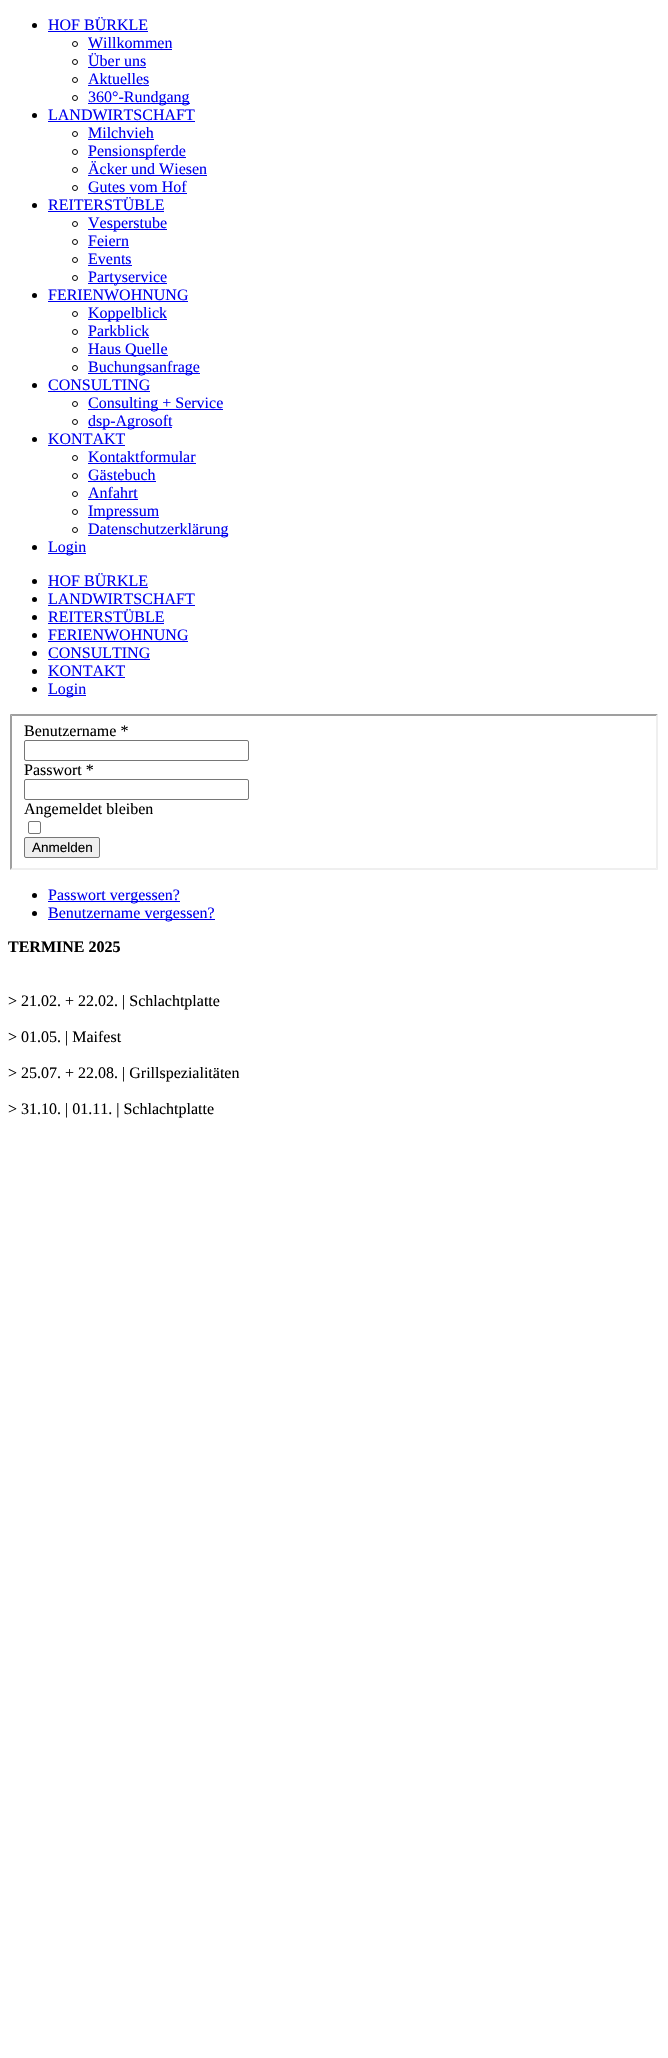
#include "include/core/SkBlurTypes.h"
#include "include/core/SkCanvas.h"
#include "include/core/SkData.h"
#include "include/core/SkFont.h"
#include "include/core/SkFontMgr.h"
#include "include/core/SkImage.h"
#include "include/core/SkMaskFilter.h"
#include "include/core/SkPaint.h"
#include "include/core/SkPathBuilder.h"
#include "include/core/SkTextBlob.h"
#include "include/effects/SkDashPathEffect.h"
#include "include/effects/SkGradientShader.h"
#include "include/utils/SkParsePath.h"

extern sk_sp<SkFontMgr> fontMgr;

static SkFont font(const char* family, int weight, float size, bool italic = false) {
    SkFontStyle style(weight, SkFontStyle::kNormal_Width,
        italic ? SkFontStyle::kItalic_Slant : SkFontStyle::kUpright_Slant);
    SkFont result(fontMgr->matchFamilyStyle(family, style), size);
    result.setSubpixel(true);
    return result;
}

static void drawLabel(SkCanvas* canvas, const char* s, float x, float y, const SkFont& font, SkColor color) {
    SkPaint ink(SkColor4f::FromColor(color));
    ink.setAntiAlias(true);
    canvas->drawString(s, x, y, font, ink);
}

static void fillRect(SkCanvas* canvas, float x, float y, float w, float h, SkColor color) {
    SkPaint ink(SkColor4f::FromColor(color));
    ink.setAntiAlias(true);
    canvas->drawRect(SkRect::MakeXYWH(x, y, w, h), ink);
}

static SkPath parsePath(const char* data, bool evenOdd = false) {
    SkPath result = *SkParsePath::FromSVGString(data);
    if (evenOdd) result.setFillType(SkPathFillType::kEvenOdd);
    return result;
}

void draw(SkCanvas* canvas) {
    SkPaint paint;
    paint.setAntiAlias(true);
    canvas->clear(0xFFFFFFFF);
    paint.setColor(0xFF000000);
    canvas->drawCircle(34.5f, 25.5f, 2.5f, paint);
    SkFont font1 = font("Liberation Serif", 400, 16);
    drawLabel(canvas, "HOF BÜRKLE", 48, 30, font1, 0xFF0000EE);
    fillRect(canvas, 48, 31, 100, 1, 0xFF0000EE);
    paint.setStroke(true);
    paint.setStrokeWidth(1);
    canvas->drawCircle(75, 44, 2.5f, paint);
    drawLabel(canvas, "Willkommen", 88, 48, font1, 0xFF0000EE);
    fillRect(canvas, 88, 49, 84, 1, 0xFF0000EE);
    canvas->drawCircle(75, 62, 2.5f, paint);
    drawLabel(canvas, "Über uns", 88, 66, font1, 0xFF0000EE);
    fillRect(canvas, 88, 67, 58, 1, 0xFF0000EE);
    canvas->drawCircle(75, 80, 2.5f, paint);
    drawLabel(canvas, "Aktuelles", 88, 84, font1, 0xFF0000EE);
    fillRect(canvas, 88, 85, 61, 1, 0xFF0000EE);
    canvas->drawCircle(75, 98, 2.5f, paint);
    fillRect(canvas, 88, 103, 102, 1, 0xFF0000EE);
    drawLabel(canvas, "360°-Rundgang", 88, 102, font1, 0xFF0000EE);
    paint.setStroke(false);
    canvas->drawCircle(34.5f, 115.5f, 2.5f, paint);
    drawLabel(canvas, "LANDWIRTSCHAFT", 48, 120, font1, 0xFF0000EE);
    fillRect(canvas, 48, 121, 147, 1, 0xFF0000EE);
    paint.setStroke(true);
    canvas->drawCircle(75, 134, 2.5f, paint);
    drawLabel(canvas, "Milchvieh", 88, 138, font1, 0xFF0000EE);
    fillRect(canvas, 88, 139, 66, 1, 0xFF0000EE);
    canvas->drawCircle(75, 152, 2.5f, paint);
    fillRect(canvas, 88, 157, 98, 1, 0xFF0000EE);
    drawLabel(canvas, "Pensionspferde", 88, 156, font1, 0xFF0000EE);
    canvas->drawCircle(75, 170, 2.5f, paint);
    drawLabel(canvas, "Äcker und Wiesen", 88, 174, font1, 0xFF0000EE);
    fillRect(canvas, 88, 175, 119, 1, 0xFF0000EE);
    canvas->drawCircle(75, 188, 2.5f, paint);
    drawLabel(canvas, "Gutes vom Hof", 88, 192, font1, 0xFF0000EE);
    fillRect(canvas, 88, 193, 99, 1, 0xFF0000EE);
    paint.setStroke(false);
    canvas->drawCircle(34.5f, 205.5f, 2.5f, paint);
    drawLabel(canvas, "REITERSTÜBLE", 48, 210, font1, 0xFF0000EE);
    fillRect(canvas, 48, 211, 116, 1, 0xFF0000EE);
    paint.setStroke(true);
    canvas->drawCircle(75, 224, 2.5f, paint);
    fillRect(canvas, 88, 229, 79, 1, 0xFF0000EE);
    drawLabel(canvas, "Vesperstube", 88, 228, font1, 0xFF0000EE);
    canvas->drawCircle(75, 242, 2.5f, paint);
    drawLabel(canvas, "Feiern", 88, 246, font1, 0xFF0000EE);
    fillRect(canvas, 88, 247, 41, 1, 0xFF0000EE);
    canvas->drawCircle(75, 260, 2.5f, paint);
    drawLabel(canvas, "Events", 88, 264, font1, 0xFF0000EE);
    fillRect(canvas, 88, 265, 44, 1, 0xFF0000EE);
    canvas->drawCircle(75, 278, 2.5f, paint);
    fillRect(canvas, 88, 283, 79, 1, 0xFF0000EE);
    drawLabel(canvas, "Partyservice", 88, 282, font1, 0xFF0000EE);
    paint.setStroke(false);
    canvas->drawCircle(34.5f, 295.5f, 2.5f, paint);
    drawLabel(canvas, "FERIENWOHNUNG", 48, 300, font1, 0xFF0000EE);
    fillRect(canvas, 48, 301, 140, 1, 0xFF0000EE);
    paint.setStroke(true);
    canvas->drawCircle(75, 314, 2.5f, paint);
    fillRect(canvas, 88, 319, 79, 1, 0xFF0000EE);
    drawLabel(canvas, "Koppelblick", 88, 318, font1, 0xFF0000EE);
    canvas->drawCircle(75, 332, 2.5f, paint);
    drawLabel(canvas, "Parkblick", 88, 336, font1, 0xFF0000EE);
    fillRect(canvas, 88, 337, 61, 1, 0xFF0000EE);
    canvas->drawCircle(75, 350, 2.5f, paint);
    fillRect(canvas, 88, 355, 80, 1, 0xFF0000EE);
    drawLabel(canvas, "Haus Quelle", 88, 354, font1, 0xFF0000EE);
    canvas->drawCircle(75, 368, 2.5f, paint);
    fillRect(canvas, 88, 373, 112, 1, 0xFF0000EE);
    drawLabel(canvas, "Buchungsanfrage", 88, 372, font1, 0xFF0000EE);
    paint.setStroke(false);
    canvas->drawCircle(34.5f, 385.5f, 2.5f, paint);
    drawLabel(canvas, "CONSULTING", 48, 390, font1, 0xFF0000EE);
    fillRect(canvas, 48, 391, 102, 1, 0xFF0000EE);
    paint.setStroke(true);
    canvas->drawCircle(75, 404, 2.5f, paint);
    fillRect(canvas, 88, 409, 135, 1, 0xFF0000EE);
    drawLabel(canvas, "Consulting + Service", 88, 408, font1, 0xFF0000EE);
    canvas->drawCircle(75, 422, 2.5f, paint);
    fillRect(canvas, 88, 427, 84, 1, 0xFF0000EE);
    drawLabel(canvas, "dsp-Agrosoft", 88, 426, font1, 0xFF0000EE);
    paint.setStroke(false);
    canvas->drawCircle(34.5f, 439.5f, 2.5f, paint);
    drawLabel(canvas, "KONTAKT", 48, 444, font1, 0xFF0000EE);
    fillRect(canvas, 48, 445, 77, 1, 0xFF0000EE);
    paint.setStroke(true);
    canvas->drawCircle(75, 458, 2.5f, paint);
    drawLabel(canvas, "Kontaktformular", 88, 462, font1, 0xFF0000EE);
    fillRect(canvas, 88, 463, 108, 1, 0xFF0000EE);
    canvas->drawCircle(75, 476, 2.5f, paint);
    drawLabel(canvas, "Gästebuch", 88, 480, font1, 0xFF0000EE);
    fillRect(canvas, 88, 481, 68, 1, 0xFF0000EE);
    canvas->drawCircle(75, 494, 2.5f, paint);
    drawLabel(canvas, "Anfahrt", 88, 498, font1, 0xFF0000EE);
    fillRect(canvas, 88, 499, 50, 1, 0xFF0000EE);
    canvas->drawCircle(75, 512, 2.5f, paint);
    fillRect(canvas, 88, 517, 71, 1, 0xFF0000EE);
    drawLabel(canvas, "Impressum", 88, 516, font1, 0xFF0000EE);
    canvas->drawCircle(75, 530, 2.5f, paint);
    fillRect(canvas, 88, 535, 140, 1, 0xFF0000EE);
    drawLabel(canvas, "Datenschutzerklärung", 88, 534, font1, 0xFF0000EE);
    paint.setStroke(false);
    canvas->drawCircle(34.5f, 547.5f, 2.5f, paint);
    fillRect(canvas, 48, 553, 38, 1, 0xFF0000EE);
    drawLabel(canvas, "Login", 48, 552, font1, 0xFF0000EE);
    canvas->drawCircle(34.5f, 581.5f, 2.5f, paint);
    drawLabel(canvas, "HOF BÜRKLE", 48, 586, font1, 0xFF0000EE);
    fillRect(canvas, 48, 587, 100, 1, 0xFF0000EE);
    canvas->drawCircle(34.5f, 599.5f, 2.5f, paint);
    drawLabel(canvas, "LANDWIRTSCHAFT", 48, 604, font1, 0xFF0000EE);
    fillRect(canvas, 48, 605, 147, 1, 0xFF0000EE);
    canvas->drawCircle(34.5f, 617.5f, 2.5f, paint);
    drawLabel(canvas, "REITERSTÜBLE", 48, 622, font1, 0xFF0000EE);
    fillRect(canvas, 48, 623, 116, 1, 0xFF0000EE);
    canvas->drawCircle(34.5f, 635.5f, 2.5f, paint);
    drawLabel(canvas, "FERIENWOHNUNG", 48, 640, font1, 0xFF0000EE);
    fillRect(canvas, 48, 641, 140, 1, 0xFF0000EE);
    canvas->drawCircle(34.5f, 653.5f, 2.5f, paint);
    drawLabel(canvas, "CONSULTING", 48, 658, font1, 0xFF0000EE);
    fillRect(canvas, 48, 659, 102, 1, 0xFF0000EE);
    canvas->drawCircle(34.5f, 671.5f, 2.5f, paint);
    drawLabel(canvas, "KONTAKT", 48, 676, font1, 0xFF0000EE);
    fillRect(canvas, 48, 677, 77, 1, 0xFF0000EE);
    canvas->drawCircle(34.5f, 689.5f, 2.5f, paint);
    fillRect(canvas, 48, 695, 38, 1, 0xFF0000EE);
    drawLabel(canvas, "Login", 48, 694, font1, 0xFF0000EE);
    paint.setColor(0xFF9F9F9F);
    canvas->drawPath(parsePath("M10 714H658L656 716H12Z"), paint);
    paint.setColor(0xFFEFEFEF);
    canvas->drawPath(parsePath("M658 714V870L656 868V716Z"), paint);
    canvas->drawPath(parsePath("M658 870H10L12 868H656Z"), paint);
    paint.setColor(0xFF9F9F9F);
    canvas->drawPath(parsePath("M10 870V714L12 716V868Z"), paint);
    drawLabel(canvas, "Benutzername *", 24, 736, font1, 0xFF000000);
    paint.setStroke(true);
    paint.setColor(0xFF767676);
    canvas->drawRoundRect(SkRect::MakeXYWH(24.5f, 740.5f, 224, 20), 1.5f, 1.5f, paint);
    drawLabel(canvas, "Passwort *", 24, 775, font1, 0xFF000000);
    canvas->drawRoundRect(SkRect::MakeXYWH(24.5f, 779.5f, 224, 20), 1.5f, 1.5f, paint);
    drawLabel(canvas, "Angemeldet bleiben", 24, 814, font1, 0xFF000000);
    canvas->drawRoundRect(SkRect::MakeXYWH(28.5f, 821.5f, 12, 12), 1.5f, 1.5f, paint);
    paint.setStroke(false);
    paint.setColor(0xFFEFEFEF);
    canvas->drawRoundRect(SkRect::MakeXYWH(24.5f, 837.5f, 75, 20), 1.5f, 1.5f, paint);
    paint.setStroke(true);
    paint.setColor(0xFF767676);
    canvas->drawRoundRect(SkRect::MakeXYWH(24.5f, 837.5f, 75, 20), 1.5f, 1.5f, paint);
    SkFont font2 = font("Liberation Sans", 400, 13.5f);
    drawLabel(canvas, "Anmelden", 32, 852, font2, 0xFF000000);
    paint.setStroke(false);
    paint.setColor(0xFF000000);
    canvas->drawCircle(34.5f, 895.5f, 2.5f, paint);
    fillRect(canvas, 48, 901, 132, 1, 0xFF0000EE);
    drawLabel(canvas, "Passwort vergessen?", 48, 900, font1, 0xFF0000EE);
    canvas->drawCircle(34.5f, 913.5f, 2.5f, paint);
    fillRect(canvas, 48, 919, 167, 1, 0xFF0000EE);
    drawLabel(canvas, "Benutzername vergessen?", 48, 918, font1, 0xFF0000EE);
    SkFont font3 = font("Liberation Serif", 700, 16);
    drawLabel(canvas, "TERMINE 2025", 8, 952, font3, 0xFF000000);
    drawLabel(canvas, "> 21.02. + 22.02. | Schlachtplatte", 8, 1006, font1, 0xFF000000);
    drawLabel(canvas, "> 01.05. | Maifest", 8, 1042, font1, 0xFF000000);
    drawLabel(canvas, "> 25.07. + 22.08. | Grillspezialitäten", 8, 1078, font1, 0xFF000000);
    drawLabel(canvas, "> 31.10. | 01.11. | Schlachtplatte", 8, 1114, font1, 0xFF000000);
}
